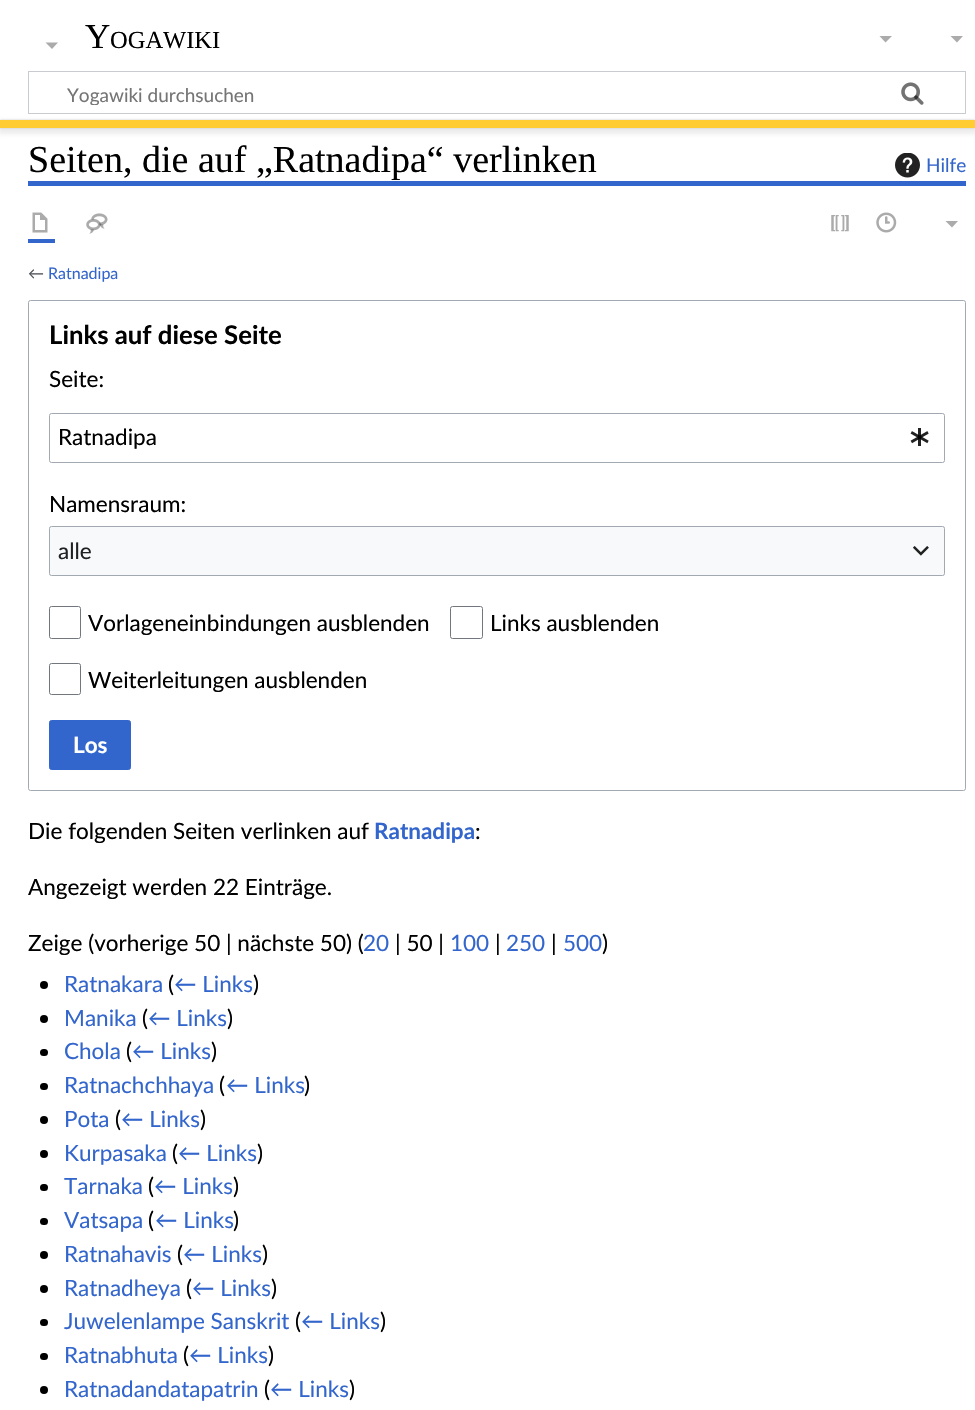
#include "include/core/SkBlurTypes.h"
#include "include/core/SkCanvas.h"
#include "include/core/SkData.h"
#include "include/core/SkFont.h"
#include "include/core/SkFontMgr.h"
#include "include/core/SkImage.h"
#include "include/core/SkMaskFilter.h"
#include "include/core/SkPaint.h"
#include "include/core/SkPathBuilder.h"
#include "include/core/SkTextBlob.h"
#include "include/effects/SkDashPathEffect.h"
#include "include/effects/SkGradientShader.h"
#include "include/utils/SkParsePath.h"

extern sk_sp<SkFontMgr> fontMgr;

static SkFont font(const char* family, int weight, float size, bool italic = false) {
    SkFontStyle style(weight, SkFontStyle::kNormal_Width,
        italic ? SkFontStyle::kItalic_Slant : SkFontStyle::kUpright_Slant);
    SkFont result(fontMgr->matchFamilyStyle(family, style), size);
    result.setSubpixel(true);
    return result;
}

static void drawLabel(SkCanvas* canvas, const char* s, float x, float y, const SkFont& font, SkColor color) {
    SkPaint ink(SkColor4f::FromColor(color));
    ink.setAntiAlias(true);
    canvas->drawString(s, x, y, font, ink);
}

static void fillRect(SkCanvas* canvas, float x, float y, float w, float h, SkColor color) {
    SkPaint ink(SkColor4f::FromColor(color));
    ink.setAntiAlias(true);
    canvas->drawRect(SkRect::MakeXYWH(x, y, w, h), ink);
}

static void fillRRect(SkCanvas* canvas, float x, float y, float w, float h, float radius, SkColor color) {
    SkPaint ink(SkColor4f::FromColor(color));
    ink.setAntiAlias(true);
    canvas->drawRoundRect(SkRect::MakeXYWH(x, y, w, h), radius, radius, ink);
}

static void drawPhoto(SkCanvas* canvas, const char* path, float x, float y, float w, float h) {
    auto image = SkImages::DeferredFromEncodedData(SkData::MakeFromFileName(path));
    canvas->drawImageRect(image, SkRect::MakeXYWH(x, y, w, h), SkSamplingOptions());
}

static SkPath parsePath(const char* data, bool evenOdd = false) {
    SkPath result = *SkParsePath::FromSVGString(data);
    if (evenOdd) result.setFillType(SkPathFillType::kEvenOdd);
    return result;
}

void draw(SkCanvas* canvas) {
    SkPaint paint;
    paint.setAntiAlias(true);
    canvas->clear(0xFFFFFFFF);
    SkFont font1 = font("Liberation Serif", 400, 35);
    drawLabel(canvas, "Y", 85, 48, font1, 0xFF000000);
    SkFont font2 = font("Liberation Serif", 400, 24.5f);
    drawLabel(canvas, "OGAWIKI", 110, 48, font2, 0xFF000000);
    paint.setColor(0xFFABABAB);
    canvas->drawPath(parsePath("M963 36L957 42.5L950.5 36Z"), paint);
    paint.setStroke(true);
    paint.setStrokeWidth(1);
    paint.setColor(0xFFC8CCD1);
    canvas->drawRect(SkRect::MakeXYWH(28.5f, 71.5f, 937, 42), paint);
    drawPhoto(canvas, "assets/img1.png", 901, 82, 23, 23);
    canvas->save();
    canvas->clipRect(SkRect::MakeXYWH(66, 83, 809, 22));
    SkFont font3 = font("Lato", 400, 19);
    drawLabel(canvas, "Yogawiki durchsuchen", 67, 102, font3, 0xFF757575);
    canvas->restore();
    drawPhoto(canvas, "assets/img2.png", 901, 82, 23, 23);
    paint.setStroke(false);
    paint.setColor(0x33000000);
    paint.setMaskFilter(SkMaskFilter::MakeBlur(kNormal_SkBlurStyle, 1));
    canvas->drawRect(SkRect::MakeXYWH(0, 120, 975, 8), paint);
    paint.setMaskFilter(nullptr);
    paint.setColor(0x12000000);
    paint.setMaskFilter(SkMaskFilter::MakeBlur(kNormal_SkBlurStyle, 2));
    canvas->drawRect(SkRect::MakeXYWH(-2, 121, 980, 13), paint);
    paint.setMaskFilter(nullptr);
    fillRect(canvas, 0, 120, 975, 8, 0xFFFFCC32);
    paint.setColor(0xFFABABAB);
    canvas->drawPath(parsePath("M892 36L885.5 42.5L879.5 36Z"), paint);
    canvas->drawPath(parsePath("M58 42.5L52 49L45.5 42.5Z"), paint);
    fillRect(canvas, 28, 181, 938, 5, 0xFF3366CC);
    SkFont font4 = font("Liberation Serif", 400, 38);
    drawLabel(canvas, "Seiten, die auf „Ratnadipa“ verlinken", 28, 172, font4, 0xFF000000);
    drawPhoto(canvas, "assets/img3.png", 895, 153, 25, 25);
    drawLabel(canvas, "Hilfe", 926, 172, font3, 0xFF3366CC);
    fillRect(canvas, 28, 239, 27, 4, 0xFF3366CC);
    drawPhoto(canvas, "assets/img4.png", 32, 212, 16, 21);
    drawPhoto(canvas, "assets/img5.png", 86, 213, 22, 21);
    drawPhoto(canvas, "assets/img6.png", 831, 215, 18, 17);
    drawPhoto(canvas, "assets/img7.png", 876, 212, 21, 21);
    canvas->drawPath(parsePath("M958 221L952 227.5L945.5 221Z"), paint);
    SkFont font5 = font("Lato", 400, 16);
    drawLabel(canvas, "←", 28, 279, font5, 0xFF54595D);
    drawLabel(canvas, "Ratnadipa", 48, 279, font5, 0xFF3366CC);
    paint.setStroke(true);
    paint.setColor(0xFFA2A9B1);
    canvas->drawRoundRect(SkRect::MakeXYWH(28.5f, 300.5f, 937, 490), 2, 2, paint);
    SkFont font6 = font("Lato", 700, 25.75f);
    drawLabel(canvas, "Links auf diese Seite", 49, 344, font6, 0xFF000000);
    SkFont font7 = font("Lato", 400, 22.5f);
    drawLabel(canvas, "Seite:", 49, 387, font7, 0xFF000000);
    canvas->drawRoundRect(SkRect::MakeXYWH(49.5f, 413.5f, 895, 49), 2, 2, paint);
    drawLabel(canvas, "Ratnadipa", 58, 445, font7, 0xFF000000);
    drawPhoto(canvas, "assets/img8.png", 910, 428, 19, 18);
    drawLabel(canvas, "Namensraum:", 49, 512, font7, 0xFF000000);
    fillRect(canvas, 49, 526, 896, 50, 0xFFF8F9FA);
    canvas->drawRoundRect(SkRect::MakeXYWH(49.5f, 526.5f, 895, 49), 2, 2, paint);
    drawLabel(canvas, "alle", 58, 559, font7, 0xFF202122);
    drawPhoto(canvas, "assets/img9.png", 913, 546, 16, 10);
    paint.setColor(0xFF72777D);
    canvas->drawRoundRect(SkRect::MakeXYWH(49.5f, 606.5f, 31, 32), 2, 2, paint);
    drawLabel(canvas, "Vorlageneinbindungen ausblenden", 88, 631, font7, 0xFF000000);
    canvas->drawRoundRect(SkRect::MakeXYWH(450.5f, 606.5f, 32, 32), 2, 2, paint);
    drawLabel(canvas, "Links ausblenden", 490, 631, font7, 0xFF000000);
    canvas->drawRoundRect(SkRect::MakeXYWH(49.5f, 663.5f, 31, 31), 2, 2, paint);
    drawLabel(canvas, "Weiterleitungen ausblenden", 88, 688, font7, 0xFF000000);
    paint.setStroke(false);
    paint.setColor(0xFF3366CC);
    canvas->drawRoundRect(SkRect::MakeXYWH(49.5f, 720.5f, 81, 49), 2, 2, paint);
    paint.setStroke(true);
    canvas->drawRoundRect(SkRect::MakeXYWH(49.5f, 720.5f, 81, 49), 2, 2, paint);
    SkFont font8 = font("Lato", 700, 22.5f);
    drawLabel(canvas, "Los", 73, 753, font8, 0xFFFFFFFF);
    drawLabel(canvas, "Die folgenden Seiten verlinken auf", 28, 839, font7, 0xFF000000);
    drawLabel(canvas, "Ratnadipa", 374, 839, font8, 0xFF3366CC);
    drawLabel(canvas, ":", 475, 839, font7, 0xFF000000);
    drawLabel(canvas, "Angezeigt werden 22 Einträge.", 28, 895, font7, 0xFF000000);
    drawLabel(canvas, "Zeige (vorherige 50 | nächste 50) (", 28, 951, font7, 0xFF000000);
    drawLabel(canvas, "20", 363, 951, font7, 0xFF3366CC);
    drawLabel(canvas, "| 50 |", 395, 951, font7, 0xFF000000);
    drawLabel(canvas, "100", 450, 951, font7, 0xFF3366CC);
    drawLabel(canvas, "|", 495, 951, font7, 0xFF000000);
    drawLabel(canvas, "250", 506, 951, font7, 0xFF3366CC);
    drawLabel(canvas, "|", 551, 951, font7, 0xFF000000);
    drawLabel(canvas, "500", 563, 951, font7, 0xFF3366CC);
    drawLabel(canvas, ")", 602, 951, font7, 0xFF000000);
    paint.setStroke(false);
    paint.setColor(0xFF000000);
    canvas->drawCircle(44, 985, 4, paint);
    drawLabel(canvas, "Ratnakara", 64, 992, font7, 0xFF3366CC);
    drawLabel(canvas, "(", 168, 992, font7, 0xFF000000);
    drawLabel(canvas, "← Links", 174, 992, font7, 0xFF3366CC);
    drawLabel(canvas, ")", 253, 992, font7, 0xFF000000);
    canvas->drawCircle(44, 1019, 4, paint);
    drawLabel(canvas, "Manika", 64, 1026, font7, 0xFF3366CC);
    drawLabel(canvas, "(", 142, 1026, font7, 0xFF000000);
    drawLabel(canvas, "← Links", 148, 1026, font7, 0xFF3366CC);
    drawLabel(canvas, ")", 227, 1026, font7, 0xFF000000);
    fillRRect(canvas, 40, 1049, 8, 7, 3.5f, 0xFF000000);
    drawLabel(canvas, "Chola", 64, 1059, font7, 0xFF3366CC);
    drawLabel(canvas, "(", 126, 1059, font7, 0xFF000000);
    drawLabel(canvas, "← Links", 132, 1059, font7, 0xFF3366CC);
    drawLabel(canvas, ")", 211, 1059, font7, 0xFF000000);
    fillRRect(canvas, 40, 1083, 8, 7, 3.5f, 0xFF000000);
    drawLabel(canvas, "Ratnachchhaya", 64, 1093, font7, 0xFF3366CC);
    drawLabel(canvas, "(", 219, 1093, font7, 0xFF000000);
    drawLabel(canvas, "← Links", 226, 1093, font7, 0xFF3366CC);
    drawLabel(canvas, ")", 304, 1093, font7, 0xFF000000);
    canvas->drawCircle(44, 1120, 4, paint);
    drawLabel(canvas, "Pota", 64, 1127, font7, 0xFF3366CC);
    drawLabel(canvas, "(", 115, 1127, font7, 0xFF000000);
    drawLabel(canvas, "← Links", 121, 1127, font7, 0xFF3366CC);
    drawLabel(canvas, ")", 200, 1127, font7, 0xFF000000);
    canvas->drawCircle(44, 1154, 4, paint);
    drawLabel(canvas, "Kurpasaka", 64, 1161, font7, 0xFF3366CC);
    drawLabel(canvas, "(", 172, 1161, font7, 0xFF000000);
    drawLabel(canvas, "← Links", 178, 1161, font7, 0xFF3366CC);
    drawLabel(canvas, ")", 257, 1161, font7, 0xFF000000);
    fillRRect(canvas, 40, 1184, 8, 7, 3.5f, 0xFF000000);
    drawLabel(canvas, "Tarnaka", 64, 1194, font7, 0xFF3366CC);
    drawLabel(canvas, "(", 148, 1194, font7, 0xFF000000);
    drawLabel(canvas, "← Links", 154, 1194, font7, 0xFF3366CC);
    drawLabel(canvas, ")", 233, 1194, font7, 0xFF000000);
    fillRRect(canvas, 40, 1218, 8, 7, 3.5f, 0xFF000000);
    drawLabel(canvas, "Vatsapa", 64, 1228, font7, 0xFF3366CC);
    drawLabel(canvas, "(", 148, 1228, font7, 0xFF000000);
    drawLabel(canvas, "← Links", 155, 1228, font7, 0xFF3366CC);
    drawLabel(canvas, ")", 233, 1228, font7, 0xFF000000);
    canvas->drawCircle(44, 1255, 4, paint);
    drawLabel(canvas, "Ratnahavis", 64, 1262, font7, 0xFF3366CC);
    drawLabel(canvas, "(", 177, 1262, font7, 0xFF000000);
    drawLabel(canvas, "← Links", 183, 1262, font7, 0xFF3366CC);
    drawLabel(canvas, ")", 262, 1262, font7, 0xFF000000);
    canvas->drawCircle(44, 1289, 4, paint);
    drawLabel(canvas, "Ratnadheya", 64, 1296, font7, 0xFF3366CC);
    drawLabel(canvas, "(", 186, 1296, font7, 0xFF000000);
    drawLabel(canvas, "← Links", 192, 1296, font7, 0xFF3366CC);
    drawLabel(canvas, ")", 271, 1296, font7, 0xFF000000);
    fillRRect(canvas, 40, 1319, 8, 7, 3.5f, 0xFF000000);
    drawLabel(canvas, "Juwelenlampe Sanskrit", 64, 1329, font7, 0xFF3366CC);
    drawLabel(canvas, "(", 295, 1329, font7, 0xFF000000);
    drawLabel(canvas, "← Links", 301, 1329, font7, 0xFF3366CC);
    drawLabel(canvas, ")", 380, 1329, font7, 0xFF000000);
    fillRRect(canvas, 40, 1353, 8, 7, 3.5f, 0xFF000000);
    drawLabel(canvas, "Ratnabhuta", 64, 1363, font7, 0xFF3366CC);
    drawLabel(canvas, "(", 183, 1363, font7, 0xFF000000);
    drawLabel(canvas, "← Links", 189, 1363, font7, 0xFF3366CC);
    drawLabel(canvas, ")", 268, 1363, font7, 0xFF000000);
    canvas->drawCircle(44, 1390, 4, paint);
    drawLabel(canvas, "Ratnadandatapatrin", 64, 1397, font7, 0xFF3366CC);
    drawLabel(canvas, "(", 264, 1397, font7, 0xFF000000);
    drawLabel(canvas, "← Links", 270, 1397, font7, 0xFF3366CC);
    drawLabel(canvas, ")", 349, 1397, font7, 0xFF000000);
}
